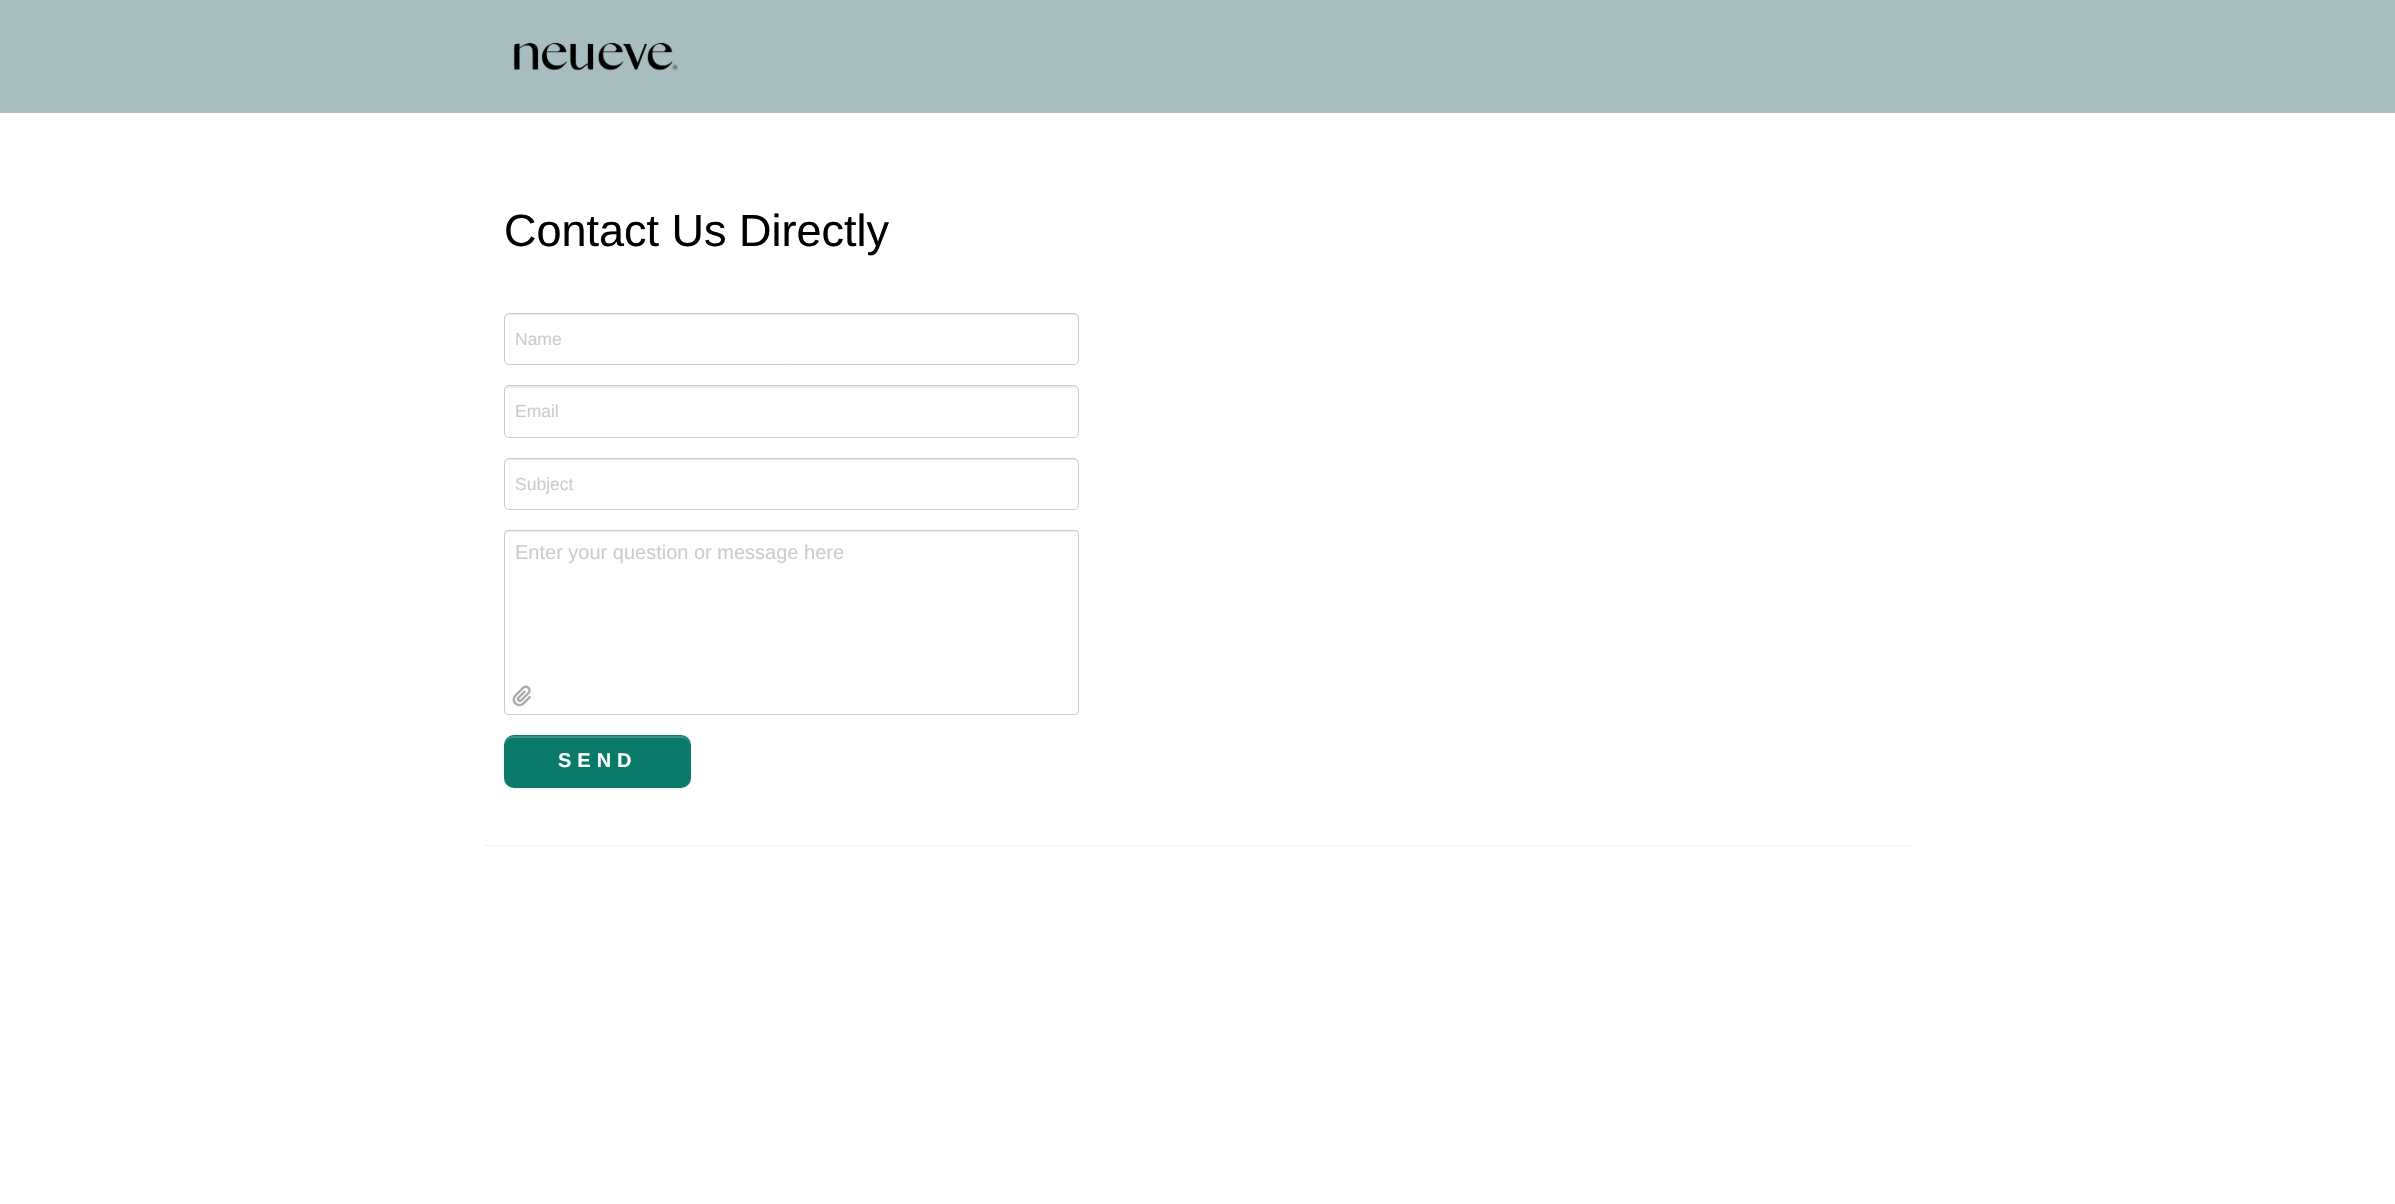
#include "include/core/SkBlurTypes.h"
#include "include/core/SkCanvas.h"
#include "include/core/SkData.h"
#include "include/core/SkFont.h"
#include "include/core/SkFontMgr.h"
#include "include/core/SkImage.h"
#include "include/core/SkMaskFilter.h"
#include "include/core/SkPaint.h"
#include "include/core/SkPathBuilder.h"
#include "include/core/SkTextBlob.h"
#include "include/effects/SkDashPathEffect.h"
#include "include/effects/SkGradientShader.h"
#include "include/utils/SkParsePath.h"

extern sk_sp<SkFontMgr> fontMgr;

static SkFont font(const char* family, int weight, float size, bool italic = false) {
    SkFontStyle style(weight, SkFontStyle::kNormal_Width,
        italic ? SkFontStyle::kItalic_Slant : SkFontStyle::kUpright_Slant);
    SkFont result(fontMgr->matchFamilyStyle(family, style), size);
    result.setSubpixel(true);
    return result;
}

static void drawLabel(SkCanvas* canvas, const char* s, float x, float y, const SkFont& font, SkColor color) {
    SkPaint ink(SkColor4f::FromColor(color));
    ink.setAntiAlias(true);
    canvas->drawString(s, x, y, font, ink);
}

static void drawTracked(SkCanvas* canvas, const char* s, float x, float y, const SkFont& font, const SkPaint& ink, float letter, float word) {
    std::vector<SkGlyphID> glyphs(font.countText(s, strlen(s), SkTextEncoding::kUTF8));
    std::vector<float> xs(glyphs.size());
    font.textToGlyphs(s, strlen(s), SkTextEncoding::kUTF8, glyphs);
    font.getXPos(glyphs, xs, x);
    float extra = 0;
    for (size_t i = 0; i < glyphs.size(); i++) {
        xs[i] += extra;
        extra += letter + word * (glyphs[i] == font.unicharToGlyph(' '));
    }
    canvas->drawTextBlob(SkTextBlob::MakeFromPosHGlyphs(glyphs, xs, y, font), 0, 0, ink);
}

static void fillRect(SkCanvas* canvas, float x, float y, float w, float h, SkColor color) {
    SkPaint ink(SkColor4f::FromColor(color));
    ink.setAntiAlias(true);
    canvas->drawRect(SkRect::MakeXYWH(x, y, w, h), ink);
}

static void fillRRect(SkCanvas* canvas, float x, float y, float w, float h, float radius, SkColor color) {
    SkPaint ink(SkColor4f::FromColor(color));
    ink.setAntiAlias(true);
    canvas->drawRoundRect(SkRect::MakeXYWH(x, y, w, h), radius, radius, ink);
}

static void drawPhoto(SkCanvas* canvas, const char* path, float x, float y, float w, float h) {
    auto image = SkImages::DeferredFromEncodedData(SkData::MakeFromFileName(path));
    canvas->drawImageRect(image, SkRect::MakeXYWH(x, y, w, h), SkSamplingOptions());
}

static SkPath parsePath(const char* data, bool evenOdd = false) {
    SkPath result = *SkParsePath::FromSVGString(data);
    if (evenOdd) result.setFillType(SkPathFillType::kEvenOdd);
    return result;
}

void draw(SkCanvas* canvas) {
    SkPaint paint;
    paint.setAntiAlias(true);
    canvas->clear(0xFFFFFFFF);
    fillRect(canvas, 0, 0, 2395, 113, 0xFFA8BDBF);
    drawPhoto(canvas, "assets/img1.png", 513, 42, 165, 29);
    SkFont font1 = font("Liberation Sans", 400, 45);
    drawLabel(canvas, "Contact Us Directly", 504, 246, font1, 0xFF000000);
    paint.setColor(0xFFECECEC);
    canvas->drawPath(parsePath("M509 315H1074C1076 315 1078 317 1078 319C1078 316 1077 314 1074 314H509C506 314 505 316 505 319C505 317 507 315 509 315Z"), paint);
    paint.setStroke(true);
    paint.setStrokeWidth(1);
    paint.setColor(0xFFCCCCCC);
    canvas->drawRoundRect(SkRect::MakeXYWH(504.5f, 313.5f, 574, 51), 4.5f, 4.5f, paint);
    SkFont font2 = font("Liberation Sans", 400, 17.5f);
    drawLabel(canvas, "Name", 515, 345, font2, 0xFFCCCCCC);
    paint.setStroke(false);
    paint.setColor(0xFFECECEC);
    canvas->drawPath(parsePath("M509 388H1074C1076 388 1078 389 1078 391C1078 388 1077 386 1074 386H509C506 386 505 388 505 391C505 389 507 388 509 388Z"), paint);
    paint.setStroke(true);
    paint.setColor(0xFFCCCCCC);
    canvas->drawRoundRect(SkRect::MakeXYWH(504.5f, 385.5f, 574, 52), 4.5f, 4.5f, paint);
    drawLabel(canvas, "Email", 515, 417, font2, 0xFFCCCCCC);
    paint.setStroke(false);
    paint.setColor(0xFFECECEC);
    canvas->drawPath(parsePath("M509 460H1074C1076 460 1078 462 1078 464C1078 461 1077 459 1074 459H509C506 459 505 461 505 464C505 462 507 460 509 460Z"), paint);
    paint.setStroke(true);
    paint.setColor(0xFFCCCCCC);
    canvas->drawRoundRect(SkRect::MakeXYWH(504.5f, 458.5f, 574, 51), 4.5f, 4.5f, paint);
    drawLabel(canvas, "Subject", 515, 490, font2, 0xFFCCCCCC);
    canvas->drawRoundRect(SkRect::MakeXYWH(504.5f, 530.5f, 574, 184), 3.5f, 3.5f, paint);
    fillRect(canvas, 505, 531, 573, 1, 0x12000000);
    SkFont font3 = font("Liberation Sans", 400, 20);
    drawLabel(canvas, "Enter your question or message here", 515, 559, font3, 0xFFCCCCCC);
    drawPhoto(canvas, "assets/img2.png", 512, 685, 19, 22);
    paint.setStroke(false);
    paint.setColor(0x0D000000);
    paint.setMaskFilter(SkMaskFilter::MakeBlur(kNormal_SkBlurStyle, 1));
    canvas->drawRoundRect(SkRect::MakeXYWH(504, 736, 187, 53), 10, 10, paint);
    paint.setMaskFilter(nullptr);
    fillRRect(canvas, 504, 735, 187, 53, 10, 0xFF097969);
    paint.setColor(0xFF3A9487);
    canvas->drawPath(parsePath("M514 738H681C686 738 690 741 690 746V745C690 740 686 736 681 736H514C509 736 505 740 505 745V746C505 741 509 738 514 738Z"), paint);
    SkFont font4 = font("Liberation Sans", 700, 20);
    paint.setColor(0xFFFFFFFF);
    drawTracked(canvas, "SEND", 558, 767, font4, paint, 6, 0);
    fillRect(canvas, 485, 845, 1425, 1, 0xFFF0F0F0);
}
